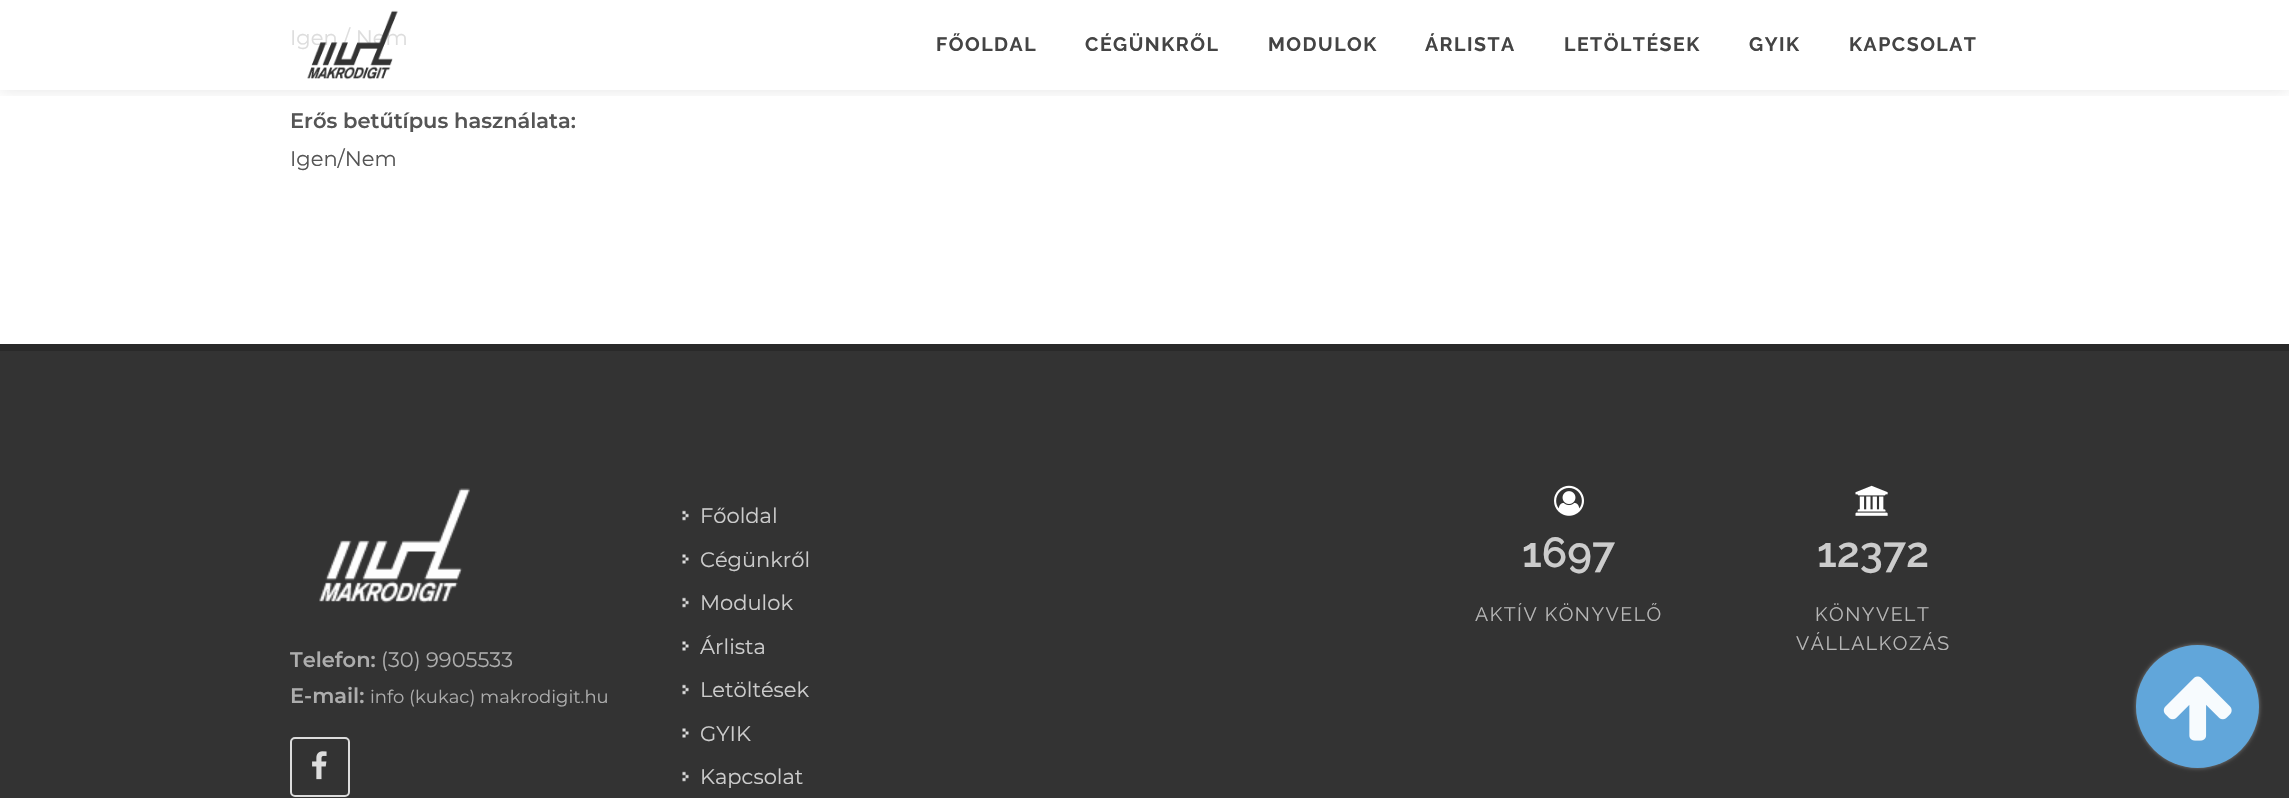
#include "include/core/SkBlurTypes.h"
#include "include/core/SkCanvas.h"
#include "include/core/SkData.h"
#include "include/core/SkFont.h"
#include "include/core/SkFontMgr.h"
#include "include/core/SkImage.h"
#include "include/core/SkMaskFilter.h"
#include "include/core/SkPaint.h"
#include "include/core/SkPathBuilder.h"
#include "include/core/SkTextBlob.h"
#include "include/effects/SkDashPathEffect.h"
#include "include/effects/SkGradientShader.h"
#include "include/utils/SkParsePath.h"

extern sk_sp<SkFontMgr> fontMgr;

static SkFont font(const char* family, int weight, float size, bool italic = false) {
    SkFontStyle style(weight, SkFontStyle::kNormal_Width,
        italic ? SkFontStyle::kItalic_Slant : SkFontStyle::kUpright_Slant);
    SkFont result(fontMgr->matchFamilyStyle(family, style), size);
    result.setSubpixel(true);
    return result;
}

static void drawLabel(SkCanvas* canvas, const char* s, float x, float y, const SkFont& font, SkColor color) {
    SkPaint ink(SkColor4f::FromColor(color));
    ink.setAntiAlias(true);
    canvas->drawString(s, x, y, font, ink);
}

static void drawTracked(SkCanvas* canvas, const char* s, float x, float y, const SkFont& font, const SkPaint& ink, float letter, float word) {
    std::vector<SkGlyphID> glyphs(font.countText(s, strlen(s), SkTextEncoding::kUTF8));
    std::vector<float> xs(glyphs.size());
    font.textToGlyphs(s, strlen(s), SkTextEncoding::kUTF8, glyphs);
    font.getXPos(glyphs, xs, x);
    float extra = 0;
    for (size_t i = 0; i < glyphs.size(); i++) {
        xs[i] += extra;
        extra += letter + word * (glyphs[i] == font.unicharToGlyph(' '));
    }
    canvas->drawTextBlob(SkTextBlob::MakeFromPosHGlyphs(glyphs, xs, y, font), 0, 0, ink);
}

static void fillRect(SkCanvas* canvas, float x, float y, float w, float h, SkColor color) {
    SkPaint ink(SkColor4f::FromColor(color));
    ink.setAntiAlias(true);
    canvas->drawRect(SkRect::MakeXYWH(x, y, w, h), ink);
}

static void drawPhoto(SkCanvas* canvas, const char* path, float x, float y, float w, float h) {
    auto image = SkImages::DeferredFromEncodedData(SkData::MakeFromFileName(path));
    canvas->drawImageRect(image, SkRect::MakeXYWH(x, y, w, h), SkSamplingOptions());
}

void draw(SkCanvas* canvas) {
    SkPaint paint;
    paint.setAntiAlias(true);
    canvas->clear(0xFFFFFFFF);
    SkFont font1 = font("Montserrat", 400, 21);
    drawLabel(canvas, "Igen / Nem", 290, 45, font1, 0xFFDDDDDD);
    SkFont font2 = font("Montserrat", 600, 21);
    drawLabel(canvas, "Erős betűtípus használata:", 290, 128, font2, 0xFF555555);
    drawLabel(canvas, "Igen/Nem", 290, 166, font1, 0xFF555555);
    canvas->save();
    canvas->clipRect(SkRect::MakeXYWH(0, 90, 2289, 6));
    paint.setColor(0x1A000000);
    paint.setMaskFilter(SkMaskFilter::MakeBlur(kNormal_SkBlurStyle, 7.5f));
    canvas->drawRect(SkRect::MakeXYWH(0, 0, 2289, 90), paint);
    paint.setMaskFilter(nullptr);
    canvas->restore();
    drawPhoto(canvas, "assets/img1.png", 307, 10, 91, 70);
    SkFont font3 = font("Raleway", 700, 19.5f);
    paint.setColor(0xFF444444);
    drawTracked(canvas, "FŐOLDAL", 936, 51, font3, paint, 1.5f, 0);
    drawTracked(canvas, "CÉGÜNKRŐL", 1085, 51, font3, paint, 1.5f, 0);
    drawTracked(canvas, "MODULOK", 1268, 51, font3, paint, 1.5f, 0);
    drawTracked(canvas, "ÁRLISTA", 1425, 51, font3, paint, 1.5f, 0);
    drawTracked(canvas, "LETÖLTÉSEK", 1564, 51, font3, paint, 1.5f, 0);
    drawTracked(canvas, "GYIK", 1749, 51, font3, paint, 1.5f, 0);
    drawTracked(canvas, "KAPCSOLAT", 1849, 51, font3, paint, 1.5f, 0);
    fillRect(canvas, 0, 351, 2289, 447, 0xFF333333);
    fillRect(canvas, 0, 344, 2289, 7, 0xFF292929);
    drawPhoto(canvas, "assets/img2.png", 319, 488, 151, 115);
    drawLabel(canvas, "Telefon:", 290, 667, font2, 0xFFADADAD);
    drawLabel(canvas, "(30) 9905533", 381, 667, font1, 0xFFADADAD);
    drawLabel(canvas, "E-mail:", 290, 703, font2, 0xFFADADAD);
    SkFont font4 = font("Montserrat", 400, 18);
    drawLabel(canvas, "info (kukac) makrodigit.hu", 370, 703, font4, 0xFFADADAD);
    paint.setStroke(true);
    paint.setStrokeWidth(2);
    paint.setColor(0xFFDDDDDD);
    canvas->drawRoundRect(SkRect::MakeXYWH(291, 738, 58, 58), 4, 4, paint);
    drawPhoto(canvas, "assets/img3.png", 312, 751, 15, 29);
    drawPhoto(canvas, "assets/img4.png", 682, 510, 7, 11);
    drawLabel(canvas, "Főoldal", 700, 523, font1, 0xFFCCCCCC);
    drawPhoto(canvas, "assets/img5.png", 682, 554, 7, 10);
    drawLabel(canvas, "Cégünkről", 700, 567, font1, 0xFFCCCCCC);
    drawPhoto(canvas, "assets/img4.png", 682, 597, 7, 11);
    drawLabel(canvas, "Modulok", 700, 610, font1, 0xFFCCCCCC);
    drawPhoto(canvas, "assets/img5.png", 682, 641, 7, 10);
    drawLabel(canvas, "Árlista", 700, 654, font1, 0xFFCCCCCC);
    drawPhoto(canvas, "assets/img4.png", 682, 684, 7, 11);
    drawLabel(canvas, "Letöltések", 700, 697, font1, 0xFFCCCCCC);
    drawPhoto(canvas, "assets/img5.png", 682, 728, 7, 10);
    drawLabel(canvas, "GYIK", 700, 741, font1, 0xFFCCCCCC);
    drawPhoto(canvas, "assets/img4.png", 682, 771, 7, 11);
    drawLabel(canvas, "Kapcsolat", 700, 784, font1, 0xFFCCCCCC);
    drawPhoto(canvas, "assets/img6.png", 1554, 485, 30, 31);
    SkFont font5 = font("Raleway", 600, 42);
    drawLabel(canvas, "1697", 1522, 567, font5, 0xFFCCCCCC);
    SkFont font6 = font("Raleway", 400, 19.5f);
    paint.setStroke(false);
    paint.setColor(0xFFB6B6B6);
    drawTracked(canvas, "AKTÍV KÖNYVELŐ", 1475, 621, font6, paint, 1.5f, 0);
    drawPhoto(canvas, "assets/img7.png", 1855, 485, 33, 31);
    drawLabel(canvas, "12372", 1817, 567, font5, 0xFFCCCCCC);
    drawTracked(canvas, "KÖNYVELT", 1815, 621, font6, paint, 1.5f, 0);
    drawTracked(canvas, "VÁLLALKOZÁS", 1796, 650, font6, paint, 1.5f, 0);
    paint.setColor(0xFF7C7C7C);
    paint.setMaskFilter(SkMaskFilter::MakeBlur(kNormal_SkBlurStyle, 2));
    canvas->drawRoundRect(SkRect::MakeXYWH(2136, 645, 123, 123), 61.5f, 61.5f, paint);
    paint.setMaskFilter(nullptr);
    paint.setColor(0xFF61A6DA);
    canvas->drawCircle(2197.5f, 706.5f, 61.5f, paint);
    drawPhoto(canvas, "assets/img8.png", 2163, 676, 69, 65);
}
